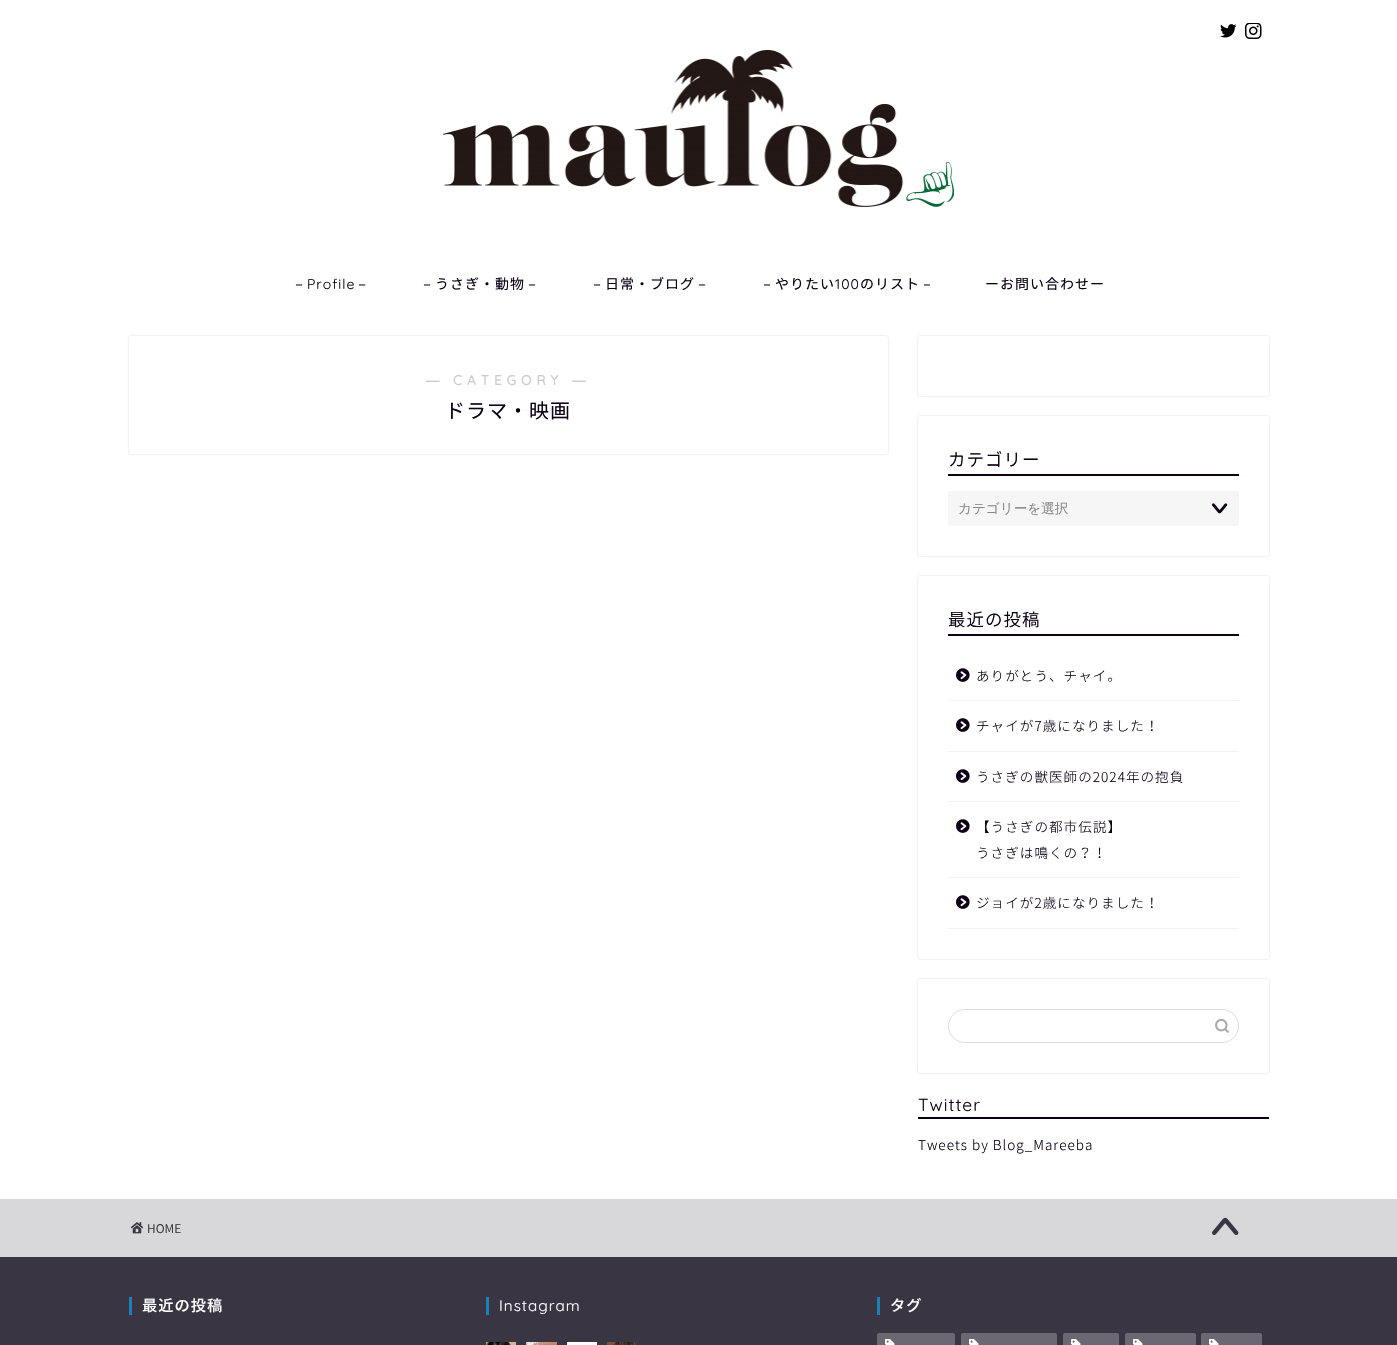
#include "include/core/SkBlurTypes.h"
#include "include/core/SkCanvas.h"
#include "include/core/SkData.h"
#include "include/core/SkFont.h"
#include "include/core/SkFontMgr.h"
#include "include/core/SkImage.h"
#include "include/core/SkMaskFilter.h"
#include "include/core/SkPaint.h"
#include "include/core/SkPathBuilder.h"
#include "include/core/SkTextBlob.h"
#include "include/effects/SkDashPathEffect.h"
#include "include/effects/SkGradientShader.h"
#include "include/utils/SkParsePath.h"

extern sk_sp<SkFontMgr> fontMgr;

static SkFont font(const char* family, int weight, float size, bool italic = false) {
    SkFontStyle style(weight, SkFontStyle::kNormal_Width,
        italic ? SkFontStyle::kItalic_Slant : SkFontStyle::kUpright_Slant);
    SkFont result(fontMgr->matchFamilyStyle(family, style), size);
    result.setSubpixel(true);
    return result;
}

static void drawLabel(SkCanvas* canvas, const char* s, float x, float y, const SkFont& font, SkColor color) {
    SkPaint ink(SkColor4f::FromColor(color));
    ink.setAntiAlias(true);
    canvas->drawString(s, x, y, font, ink);
}

static void drawTracked(SkCanvas* canvas, const char* s, float x, float y, const SkFont& font, const SkPaint& ink, float letter, float word) {
    std::vector<SkGlyphID> glyphs(font.countText(s, strlen(s), SkTextEncoding::kUTF8));
    std::vector<float> xs(glyphs.size());
    font.textToGlyphs(s, strlen(s), SkTextEncoding::kUTF8, glyphs);
    font.getXPos(glyphs, xs, x);
    float extra = 0;
    for (size_t i = 0; i < glyphs.size(); i++) {
        xs[i] += extra;
        extra += letter + word * (glyphs[i] == font.unicharToGlyph(' '));
    }
    canvas->drawTextBlob(SkTextBlob::MakeFromPosHGlyphs(glyphs, xs, y, font), 0, 0, ink);
}

static void fillRect(SkCanvas* canvas, float x, float y, float w, float h, SkColor color) {
    SkPaint ink(SkColor4f::FromColor(color));
    ink.setAntiAlias(true);
    canvas->drawRect(SkRect::MakeXYWH(x, y, w, h), ink);
}

static void fillRRect(SkCanvas* canvas, float x, float y, float w, float h, float radius, SkColor color) {
    SkPaint ink(SkColor4f::FromColor(color));
    ink.setAntiAlias(true);
    canvas->drawRoundRect(SkRect::MakeXYWH(x, y, w, h), radius, radius, ink);
}

static void drawPhoto(SkCanvas* canvas, const char* path, float x, float y, float w, float h) {
    auto image = SkImages::DeferredFromEncodedData(SkData::MakeFromFileName(path));
    canvas->drawImageRect(image, SkRect::MakeXYWH(x, y, w, h), SkSamplingOptions());
}

void draw(SkCanvas* canvas) {
    SkPaint paint;
    paint.setAntiAlias(true);
    canvas->clear(0xFFFFFFFF);
    drawPhoto(canvas, "assets/img1.png", 1220, 24, 17, 14);
    drawPhoto(canvas, "assets/img2.png", 1245, 23, 17, 16);
    drawPhoto(canvas, "assets/img3.png", 443, 50, 511, 157);
    SkFont font1 = font("WenQuanYi Zen Hei", 500, 14);
    paint.setColor(0xFF0D0015);
    drawTracked(canvas, "－", 292, 289, font1, paint, 1, 0);
    SkFont font2 = font("Quicksand", 300, 14);
    drawTracked(canvas, "Profile", 307, 289, font2, paint, 1, 0);
    drawTracked(canvas, "－", 355, 289, font1, paint, 1, 0);
    drawTracked(canvas, "－", 420, 289, font1, paint, 1, 0);
    SkFont font3 = font("Noto Sans JP", 400, 14);
    drawTracked(canvas, "うさぎ・動物", 435, 289, font3, paint, 1, 0);
    drawTracked(canvas, "－", 525, 289, font1, paint, 1, 0);
    drawTracked(canvas, "－", 590, 289, font1, paint, 1, 0);
    drawTracked(canvas, "日常・ブログ", 605, 289, font3, paint, 1, 0);
    drawTracked(canvas, "－", 695, 289, font1, paint, 1, 0);
    drawTracked(canvas, "－", 760, 289, font1, paint, 1, 0);
    drawTracked(canvas, "やりたい", 775, 289, font3, paint, 1, 0);
    drawTracked(canvas, "100", 835, 289, font2, paint, 1, 0);
    drawTracked(canvas, "のリスト", 860, 289, font3, paint, 1, 0);
    drawTracked(canvas, "－", 920, 289, font1, paint, 1, 0);
    drawTracked(canvas, "ーお問い合わせー", 985, 289, font3, paint, 1, 0);
    paint.setColor(0x2E000000);
    paint.setMaskFilter(SkMaskFilter::MakeBlur(kNormal_SkBlurStyle, 1));
    canvas->drawRoundRect(SkRect::MakeXYWH(129, 336, 759, 118), 2, 2, paint);
    paint.setMaskFilter(nullptr);
    fillRRect(canvas, 129, 336, 759, 118, 2, 0xFFFFFFFF);
    SkFont font4 = font("Liberation Sans", 700, 13.6f);
    paint.setColor(0xFFCCCCCC);
    drawTracked(canvas, "―", 426, 385, font4, paint, 5, 0);
    SkFont font5 = font("Quicksand", 700, 13.6f);
    drawTracked(canvas, "CATEGORY", 453, 385, font5, paint, 5, 0);
    drawTracked(canvas, "―", 572, 385, font4, paint, 5, 0);
    SkFont font6 = font("Noto Sans JP", 400, 20);
    paint.setColor(0xFF0D0015);
    drawTracked(canvas, "ドラマ・映画", 445, 418, font6, paint, 1, 0);
    paint.setColor(0x2E000000);
    paint.setMaskFilter(SkMaskFilter::MakeBlur(kNormal_SkBlurStyle, 1));
    canvas->drawRoundRect(SkRect::MakeXYWH(918, 336, 351, 60), 2, 2, paint);
    paint.setMaskFilter(nullptr);
    fillRRect(canvas, 918, 336, 351, 60, 2, 0xFFFFFFFF);
    paint.setMaskFilter(SkMaskFilter::MakeBlur(kNormal_SkBlurStyle, 1));
    canvas->drawRoundRect(SkRect::MakeXYWH(918, 416, 351, 140), 2, 2, paint);
    paint.setMaskFilter(nullptr);
    fillRRect(canvas, 918, 416, 351, 140, 2, 0xFFFFFFFF);
    fillRect(canvas, 948, 474, 291, 2, 0xFF0D0015);
    SkFont font7 = font("Noto Sans JP", 300, 17.5f);
    paint.setColor(0xFF0D0015);
    drawTracked(canvas, "カテゴリー", 948, 466, font7, paint, 1, 0);
    fillRRect(canvas, 948, 491, 291, 35, 2, 0xFFF6F6F6);
    SkFont font8 = font("WenQuanYi Zen Hei", 500, 13.6f);
    drawLabel(canvas, "カテゴリーを選択", 958, 513, font8, 0xFF888888);
    drawPhoto(canvas, "assets/img4.png", 1212, 503, 16, 11);
    paint.setColor(0x2E000000);
    paint.setMaskFilter(SkMaskFilter::MakeBlur(kNormal_SkBlurStyle, 1));
    canvas->drawRoundRect(SkRect::MakeXYWH(918, 576, 351, 383), 2, 2, paint);
    paint.setMaskFilter(nullptr);
    fillRRect(canvas, 918, 576, 351, 383, 2, 0xFFFFFFFF);
    fillRect(canvas, 948, 634, 291, 2, 0xFF0D0015);
    paint.setColor(0xFF0D0015);
    drawTracked(canvas, "最近の投稿", 948, 626, font7, paint, 1, 0);
    fillRect(canvas, 948, 700, 291, 1, 0xFFF2F2F2);
    drawPhoto(canvas, "assets/img5.png", 956, 668, 14, 14);
    SkFont font9 = font("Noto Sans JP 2", 300, 13.6f);
    drawTracked(canvas, "ありがとう、チャイ。", 976, 681, font9, paint, 1, 0);
    fillRect(canvas, 948, 751, 291, 1, 0xFFF2F2F2);
    drawPhoto(canvas, "assets/img5.png", 956, 718, 14, 14);
    drawTracked(canvas, "チャイが7歳になりました！", 976, 731, font9, paint, 1, 0);
    fillRect(canvas, 948, 801, 291, 1, 0xFFF2F2F2);
    drawPhoto(canvas, "assets/img5.png", 956, 769, 14, 14);
    drawTracked(canvas, "うさぎの獣医師の2024年の抱負", 976, 782, font9, paint, 1, 0);
    fillRect(canvas, 948, 877, 291, 1, 0xFFF2F2F2);
    drawPhoto(canvas, "assets/img5.png", 956, 819, 14, 14);
    drawTracked(canvas, "【うさぎの都市伝説】", 976, 832, font9, paint, 1, 0);
    drawTracked(canvas, "うさぎは鳴くの？！", 976, 858, font9, paint, 1, 0);
    fillRect(canvas, 948, 928, 291, 1, 0xFFF2F2F2);
    drawPhoto(canvas, "assets/img5.png", 956, 895, 14, 14);
    drawTracked(canvas, "ジョイが2歳になりました！", 976, 908, font9, paint, 1, 0);
    paint.setColor(0x2E000000);
    paint.setMaskFilter(SkMaskFilter::MakeBlur(kNormal_SkBlurStyle, 1));
    canvas->drawRoundRect(SkRect::MakeXYWH(918, 979, 351, 94), 2, 2, paint);
    paint.setMaskFilter(nullptr);
    fillRRect(canvas, 918, 979, 351, 94, 2, 0xFFFFFFFF);
    paint.setStroke(true);
    paint.setStrokeWidth(1);
    paint.setColor(0xFFDDDDDD);
    canvas->drawRoundRect(SkRect::MakeXYWH(948.5f, 1009.5f, 290, 33), 16.5f, 16.5f, paint);
    drawPhoto(canvas, "assets/img6.png", 1215, 1018, 14, 15);
    fillRect(canvas, 918, 1117, 351, 2, 0xFF0D0015);
    SkFont font10 = font("Quicksand", 300, 17.5f);
    paint.setStroke(false);
    paint.setColor(0xFF0D0015);
    drawTracked(canvas, "Twitter", 918, 1111, font10, paint, 1, 0);
    drawTracked(canvas, "Tweets by Blog_Mareeba", 918, 1150, font9, paint, 1, 0);
    fillRect(canvas, 0, 1199, 1397, 58, 0xFFD8D7D9);
    drawPhoto(canvas, "assets/img7.png", 131, 1222, 12, 12);
    SkFont font11 = font("Noto Sans JP", 300, 12);
    drawLabel(canvas, "HOME", 147, 1233, font11, 0xFF393542);
    drawPhoto(canvas, "assets/img8.png", 1212, 1217, 27, 18);
    fillRect(canvas, 0, 1257, 1397, 88, 0xFF393542);
    fillRect(canvas, 129, 1297, 3, 18, 0xFF1B80BA);
    SkFont font12 = font("Noto Sans JP", 500, 15.25f);
    paint.setColor(0xFFFFFFFF);
    drawTracked(canvas, "最近の投稿", 142, 1311, font12, paint, 1, 0);
    fillRect(canvas, 486, 1297, 3, 18, 0xFF1B80BA);
    SkFont font13 = font("Quicksand", 300, 15.25f);
    drawTracked(canvas, "Instagram", 499, 1311, font13, paint, 1, 0);
    drawPhoto(canvas, "assets/img9.png", 486, 1342, 30, 3);
    drawPhoto(canvas, "assets/img10.png", 526, 1342, 31, 3);
    fillRect(canvas, 567, 1342, 30, 3, 0xFFFFFFFF);
    drawPhoto(canvas, "assets/img11.png", 607, 1342, 30, 3);
    fillRect(canvas, 877, 1297, 3, 18, 0xFF1B80BA);
    drawTracked(canvas, "タグ", 890, 1311, font12, paint, 1, 0);
    fillRRect(canvas, 877, 1333, 78, 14, 2, 0xFF6B6871);
    drawPhoto(canvas, "assets/img12.png", 885, 1339, 10, 6);
    fillRRect(canvas, 961, 1333, 96, 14, 2, 0xFF6B6871);
    drawPhoto(canvas, "assets/img12.png", 969, 1339, 10, 6);
    fillRRect(canvas, 1063, 1333, 56, 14, 2, 0xFF6B6871);
    drawPhoto(canvas, "assets/img12.png", 1071, 1339, 10, 6);
    fillRRect(canvas, 1125, 1333, 71, 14, 2, 0xFF6B6871);
    drawPhoto(canvas, "assets/img12.png", 1133, 1339, 10, 6);
    fillRRect(canvas, 1201, 1333, 61, 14, 2, 0xFF6B6871);
    drawPhoto(canvas, "assets/img12.png", 1209, 1339, 10, 6);
}
